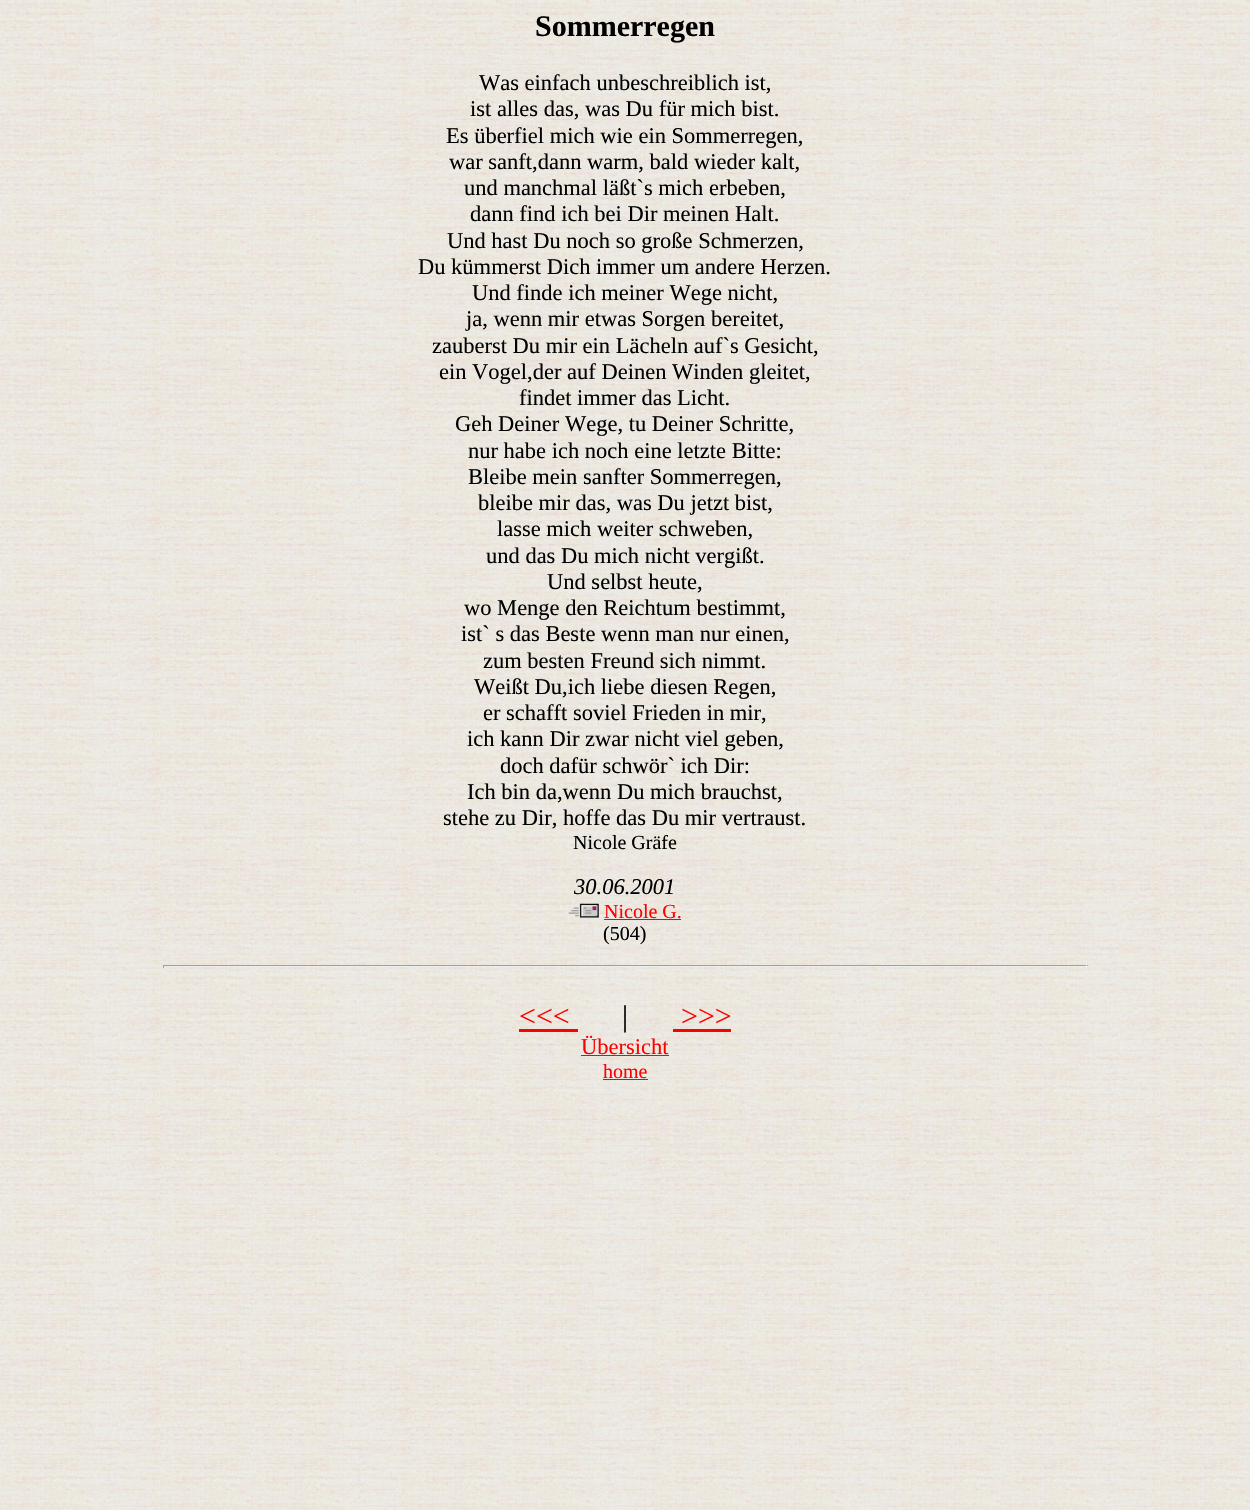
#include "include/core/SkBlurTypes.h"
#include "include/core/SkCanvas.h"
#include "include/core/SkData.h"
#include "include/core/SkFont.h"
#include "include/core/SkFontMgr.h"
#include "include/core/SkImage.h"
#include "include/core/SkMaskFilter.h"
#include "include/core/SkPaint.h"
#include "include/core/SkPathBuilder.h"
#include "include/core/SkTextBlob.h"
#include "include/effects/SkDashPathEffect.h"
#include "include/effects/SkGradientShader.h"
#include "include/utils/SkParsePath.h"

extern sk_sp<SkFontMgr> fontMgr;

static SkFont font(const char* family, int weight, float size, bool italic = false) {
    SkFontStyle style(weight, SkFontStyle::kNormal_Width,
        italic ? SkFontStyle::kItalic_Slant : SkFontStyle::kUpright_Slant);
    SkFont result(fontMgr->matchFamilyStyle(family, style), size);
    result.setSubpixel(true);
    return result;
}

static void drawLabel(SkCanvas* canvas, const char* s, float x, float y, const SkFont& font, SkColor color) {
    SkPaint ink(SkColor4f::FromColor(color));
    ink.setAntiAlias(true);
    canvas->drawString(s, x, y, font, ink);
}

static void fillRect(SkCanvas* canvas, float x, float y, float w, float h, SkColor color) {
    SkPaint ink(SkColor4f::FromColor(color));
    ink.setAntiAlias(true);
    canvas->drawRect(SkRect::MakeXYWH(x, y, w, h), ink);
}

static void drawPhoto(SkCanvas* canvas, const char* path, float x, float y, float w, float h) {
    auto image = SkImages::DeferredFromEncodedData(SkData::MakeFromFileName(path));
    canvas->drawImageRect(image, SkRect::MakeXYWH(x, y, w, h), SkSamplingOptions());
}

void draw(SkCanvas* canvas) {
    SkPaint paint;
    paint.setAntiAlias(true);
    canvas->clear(0xFFFFFFFF);
    drawPhoto(canvas, "assets/img1.png", 0, 0, 1250, 1510);
    SkFont font1 = font("Liberation Serif", 700, 30);
    drawLabel(canvas, "Sommerregen", 535, 36, font1, 0xFF000000);
    SkFont font2 = font("Liberation Serif", 400, 22.5f);
    drawLabel(canvas, "Was einfach unbeschreiblich ist,", 479, 90, font2, 0xFF000000);
    drawLabel(canvas, "ist alles das, was Du für mich bist.", 470, 116, font2, 0xFF000000);
    drawLabel(canvas, "Es überfiel mich wie ein Sommerregen,", 446, 143, font2, 0xFF000000);
    drawLabel(canvas, "war sanft,dann warm, bald wieder kalt,", 449, 169, font2, 0xFF000000);
    drawLabel(canvas, "und manchmal läßt`s mich erbeben,", 464, 195, font2, 0xFF000000);
    drawLabel(canvas, "dann find ich bei Dir meinen Halt.", 470, 221, font2, 0xFF000000);
    drawLabel(canvas, "Und hast Du noch so große Schmerzen,", 447, 248, font2, 0xFF000000);
    drawLabel(canvas, "Du kümmerst Dich immer um andere Herzen.", 418, 274, font2, 0xFF000000);
    drawLabel(canvas, "Und finde ich meiner Wege nicht,", 472, 300, font2, 0xFF000000);
    drawLabel(canvas, "ja, wenn mir etwas Sorgen bereitet,", 466, 326, font2, 0xFF000000);
    drawLabel(canvas, "zauberst Du mir ein Lächeln auf`s Gesicht,", 432, 353, font2, 0xFF000000);
    drawLabel(canvas, "ein Vogel,der auf Deinen Winden gleitet,", 439, 379, font2, 0xFF000000);
    drawLabel(canvas, "findet immer das Licht.", 519, 405, font2, 0xFF000000);
    drawLabel(canvas, "Geh Deiner Wege, tu Deiner Schritte,", 455, 431, font2, 0xFF000000);
    drawLabel(canvas, "nur habe ich noch eine letzte Bitte:", 468, 458, font2, 0xFF000000);
    drawLabel(canvas, "Bleibe mein sanfter Sommerregen,", 468, 484, font2, 0xFF000000);
    drawLabel(canvas, "bleibe mir das, was Du jetzt bist,", 478, 510, font2, 0xFF000000);
    drawLabel(canvas, "lasse mich weiter schweben,", 497, 536, font2, 0xFF000000);
    drawLabel(canvas, "und das Du mich nicht vergißt.", 486, 563, font2, 0xFF000000);
    drawLabel(canvas, "Und selbst heute,", 547, 589, font2, 0xFF000000);
    drawLabel(canvas, "wo Menge den Reichtum bestimmt,", 464, 615, font2, 0xFF000000);
    drawLabel(canvas, "ist` s das Beste wenn man nur einen,", 461, 641, font2, 0xFF000000);
    drawLabel(canvas, "zum besten Freund sich nimmt.", 483, 668, font2, 0xFF000000);
    drawLabel(canvas, "Weißt Du,ich liebe diesen Regen,", 474, 694, font2, 0xFF000000);
    drawLabel(canvas, "er schafft soviel Frieden in mir,", 483, 720, font2, 0xFF000000);
    drawLabel(canvas, "ich kann Dir zwar nicht viel geben,", 467, 746, font2, 0xFF000000);
    drawLabel(canvas, "doch dafür schwör` ich Dir:", 500, 773, font2, 0xFF000000);
    drawLabel(canvas, "Ich bin da,wenn Du mich brauchst,", 467, 799, font2, 0xFF000000);
    drawLabel(canvas, "stehe zu Dir, hoffe das Du mir vertraust.", 443, 825, font2, 0xFF000000);
    SkFont font3 = font("Liberation Serif", 400, 20);
    drawLabel(canvas, "Nicole Gräfe", 573, 849, font3, 0xFF000000);
    SkFont font4 = font("Liberation Serif", 400, 22.5f, true);
    drawLabel(canvas, "30.06.2001", 574, 894, font4, 0xFF000000);
    drawPhoto(canvas, "assets/img2.png", 568, 903, 31, 15);
    drawLabel(canvas, "Nicole G.", 604, 918, font3, 0xFFFF0000);
    fillRect(canvas, 604, 919, 77, 1, 0xFFFF0000);
    drawLabel(canvas, "(504)", 603, 940, font3, 0xFF000000);
    fillRect(canvas, 163, 965, 925, 1, 0xFF9F9F9F);
    fillRect(canvas, 1086, 965, 1, 3, 0xFFEEEEEE);
    fillRect(canvas, 163, 966, 925, 1, 0xFFEEEEEE);
    fillRect(canvas, 163, 965, 1, 3, 0xFF9F9F9F);
    SkFont font5 = font("Liberation Serif", 400, 30);
    drawLabel(canvas, "<<<", 519, 1026, font5, 0xFFFF0000);
    fillRect(canvas, 519, 1029, 59, 3, 0xFFFF0000);
    drawLabel(canvas, "|", 622, 1026, font5, 0xFF000000);
    drawLabel(canvas, ">>>", 681, 1026, font5, 0xFFFF0000);
    fillRect(canvas, 673, 1029, 58, 3, 0xFFFF0000);
    drawLabel(canvas, "Übersicht", 581, 1054, font2, 0xFFFF0000);
    fillRect(canvas, 581, 1055, 88, 1, 0xFFFF0000);
    drawLabel(canvas, "home", 603, 1078, font3, 0xFFFF0000);
    fillRect(canvas, 603, 1079, 45, 1, 0xFFFF0000);
}
